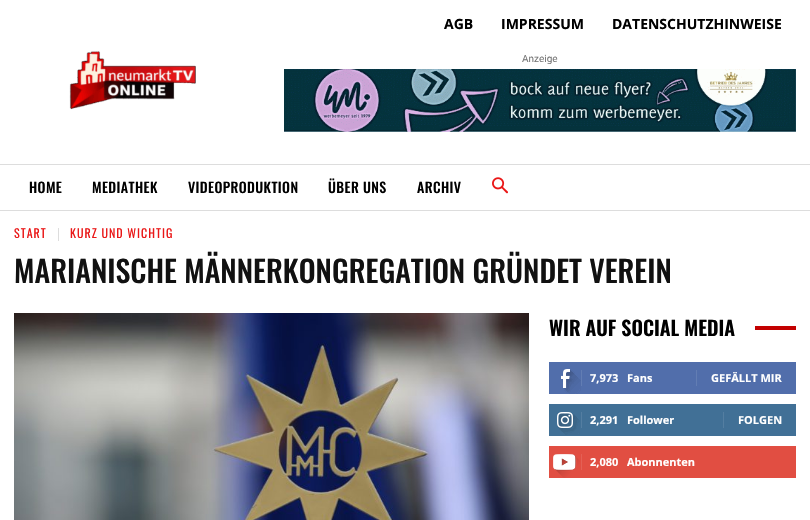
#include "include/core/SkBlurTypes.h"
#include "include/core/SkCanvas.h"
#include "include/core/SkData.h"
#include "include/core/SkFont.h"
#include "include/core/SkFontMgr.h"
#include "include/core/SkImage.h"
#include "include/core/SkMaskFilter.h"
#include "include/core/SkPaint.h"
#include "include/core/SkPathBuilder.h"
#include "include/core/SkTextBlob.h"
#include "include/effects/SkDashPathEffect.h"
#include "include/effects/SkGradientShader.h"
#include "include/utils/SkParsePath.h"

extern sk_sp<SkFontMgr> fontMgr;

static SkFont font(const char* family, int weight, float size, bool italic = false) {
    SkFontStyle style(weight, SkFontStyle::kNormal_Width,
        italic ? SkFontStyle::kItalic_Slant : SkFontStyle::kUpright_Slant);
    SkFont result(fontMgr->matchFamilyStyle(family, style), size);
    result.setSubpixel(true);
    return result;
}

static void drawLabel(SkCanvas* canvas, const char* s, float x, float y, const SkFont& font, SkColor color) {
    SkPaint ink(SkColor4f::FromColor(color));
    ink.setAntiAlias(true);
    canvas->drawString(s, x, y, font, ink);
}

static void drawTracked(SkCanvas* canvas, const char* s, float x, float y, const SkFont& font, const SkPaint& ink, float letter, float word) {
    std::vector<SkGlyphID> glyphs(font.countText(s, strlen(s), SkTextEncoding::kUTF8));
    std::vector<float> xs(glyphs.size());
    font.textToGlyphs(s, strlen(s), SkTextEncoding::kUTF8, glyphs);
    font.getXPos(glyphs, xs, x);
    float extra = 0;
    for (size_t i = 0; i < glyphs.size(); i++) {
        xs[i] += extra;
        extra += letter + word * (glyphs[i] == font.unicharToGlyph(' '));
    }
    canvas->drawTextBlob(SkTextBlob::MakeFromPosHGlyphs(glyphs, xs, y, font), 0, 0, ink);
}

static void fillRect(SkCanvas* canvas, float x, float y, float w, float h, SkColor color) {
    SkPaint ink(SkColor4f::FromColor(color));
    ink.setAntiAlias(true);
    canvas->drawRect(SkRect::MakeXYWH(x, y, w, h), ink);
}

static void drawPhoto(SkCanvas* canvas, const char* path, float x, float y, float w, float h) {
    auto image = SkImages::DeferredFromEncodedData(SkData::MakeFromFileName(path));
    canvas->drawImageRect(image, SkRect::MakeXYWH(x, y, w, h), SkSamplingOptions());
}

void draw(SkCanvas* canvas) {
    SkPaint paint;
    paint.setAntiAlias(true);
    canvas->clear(0xFFFFFFFF);
    SkFont font1 = font("Open Sans", 700, 14);
    drawLabel(canvas, "AGB", 444, 29, font1, 0xFF000000);
    drawLabel(canvas, "IMPRESSUM", 501, 29, font1, 0xFF000000);
    drawLabel(canvas, "DATENSCHUTZHINWEISE", 612, 29, font1, 0xFF000000);
    SkFont font2 = font("Roboto", 400, 10);
    drawLabel(canvas, "Anzeige", 522, 62, font2, 0xFF767676);
    drawPhoto(canvas, "assets/img1.png", 284, 69, 512, 63);
    drawPhoto(canvas, "assets/img2.png", 69, 51, 127, 59);
    fillRect(canvas, 0, 164, 810, 1, 0xFFDDDDDD);
    fillRect(canvas, 0, 210, 810, 1, 0xFFDDDDDD);
    SkFont font3 = font("Oswald", 500, 14);
    paint.setColor(0xFF000000);
    drawTracked(canvas, "HOME", 29, 193, font3, paint, 0.4f, 0);
    drawTracked(canvas, "MEDIATHEK", 92, 193, font3, paint, 0.4f, 0);
    drawTracked(canvas, "VIDEOPRODUKTION", 188, 193, font3, paint, 0.4f, 0);
    drawTracked(canvas, "ÜBER UNS", 328, 193, font3, paint, 0.4f, 0);
    drawTracked(canvas, "ARCHIV", 417, 193, font3, paint, 0.4f, 0);
    drawPhoto(canvas, "assets/img3.png", 492, 177, 16, 17);
    SkFont font4 = font("Oswald", 400, 12);
    paint.setColor(0xFFEA1717);
    drawTracked(canvas, "START", 14, 238, font4, paint, 1, 0);
    fillRect(canvas, 58, 228, 1, 13, 0xFFDDDDDD);
    drawTracked(canvas, "KURZ UND WICHTIG", 70, 238, font4, paint, 1, 0);
    SkFont font5 = font("Oswald", 500, 30);
    drawLabel(canvas, "MARIANISCHE MÄNNERKONGREGATION GRÜNDET VEREIN", 14, 283, font5, 0xFF111111);
    drawPhoto(canvas, "assets/img4.png", 14, 313, 515, 207);
    SkFont font6 = font("Oswald", 600, 20);
    drawLabel(canvas, "WIR AUF SOCIAL MEDIA", 549, 336, font6, 0xFF000000);
    fillRect(canvas, 755, 326, 41, 4, 0xFFC30000);
    fillRect(canvas, 549, 362, 247, 32, 0xFF516EAB);
    drawPhoto(canvas, "assets/img5.png", 561, 369, 20, 25);
    fillRect(canvas, 581, 370, 1, 16, 0xFF627DB3);
    SkFont font7 = font("Open Sans", 700, 11);
    drawLabel(canvas, "7,973", 590, 382, font7, 0xFFFFFFFF);
    drawLabel(canvas, "Fans", 627, 382, font7, 0xFFFFFFFF);
    fillRect(canvas, 696, 370, 1, 16, 0xFF627DB3);
    drawLabel(canvas, "GEFÄLLT MIR", 711, 382, font7, 0xFFFFFFFF);
    fillRect(canvas, 549, 404, 247, 32, 0xFF417096);
    drawPhoto(canvas, "assets/img6.png", 557, 412, 23, 23);
    fillRect(canvas, 581, 412, 1, 16, 0xFF547EA1);
    drawLabel(canvas, "2,291", 590, 424, font7, 0xFFFFFFFF);
    drawLabel(canvas, "Follower", 627, 424, font7, 0xFFFFFFFF);
    fillRect(canvas, 723, 412, 1, 16, 0xFF547EA1);
    drawLabel(canvas, "FOLGEN", 738, 424, font7, 0xFFFFFFFF);
    fillRect(canvas, 549, 446, 247, 32, 0xFFE14E42);
    drawPhoto(canvas, "assets/img7.png", 553, 454, 27, 24);
    fillRect(canvas, 581, 454, 1, 16, 0xFFE46055);
    drawLabel(canvas, "2,080", 590, 466, font7, 0xFFFFFFFF);
    drawLabel(canvas, "Abonnenten", 627, 466, font7, 0xFFFFFFFF);
}
